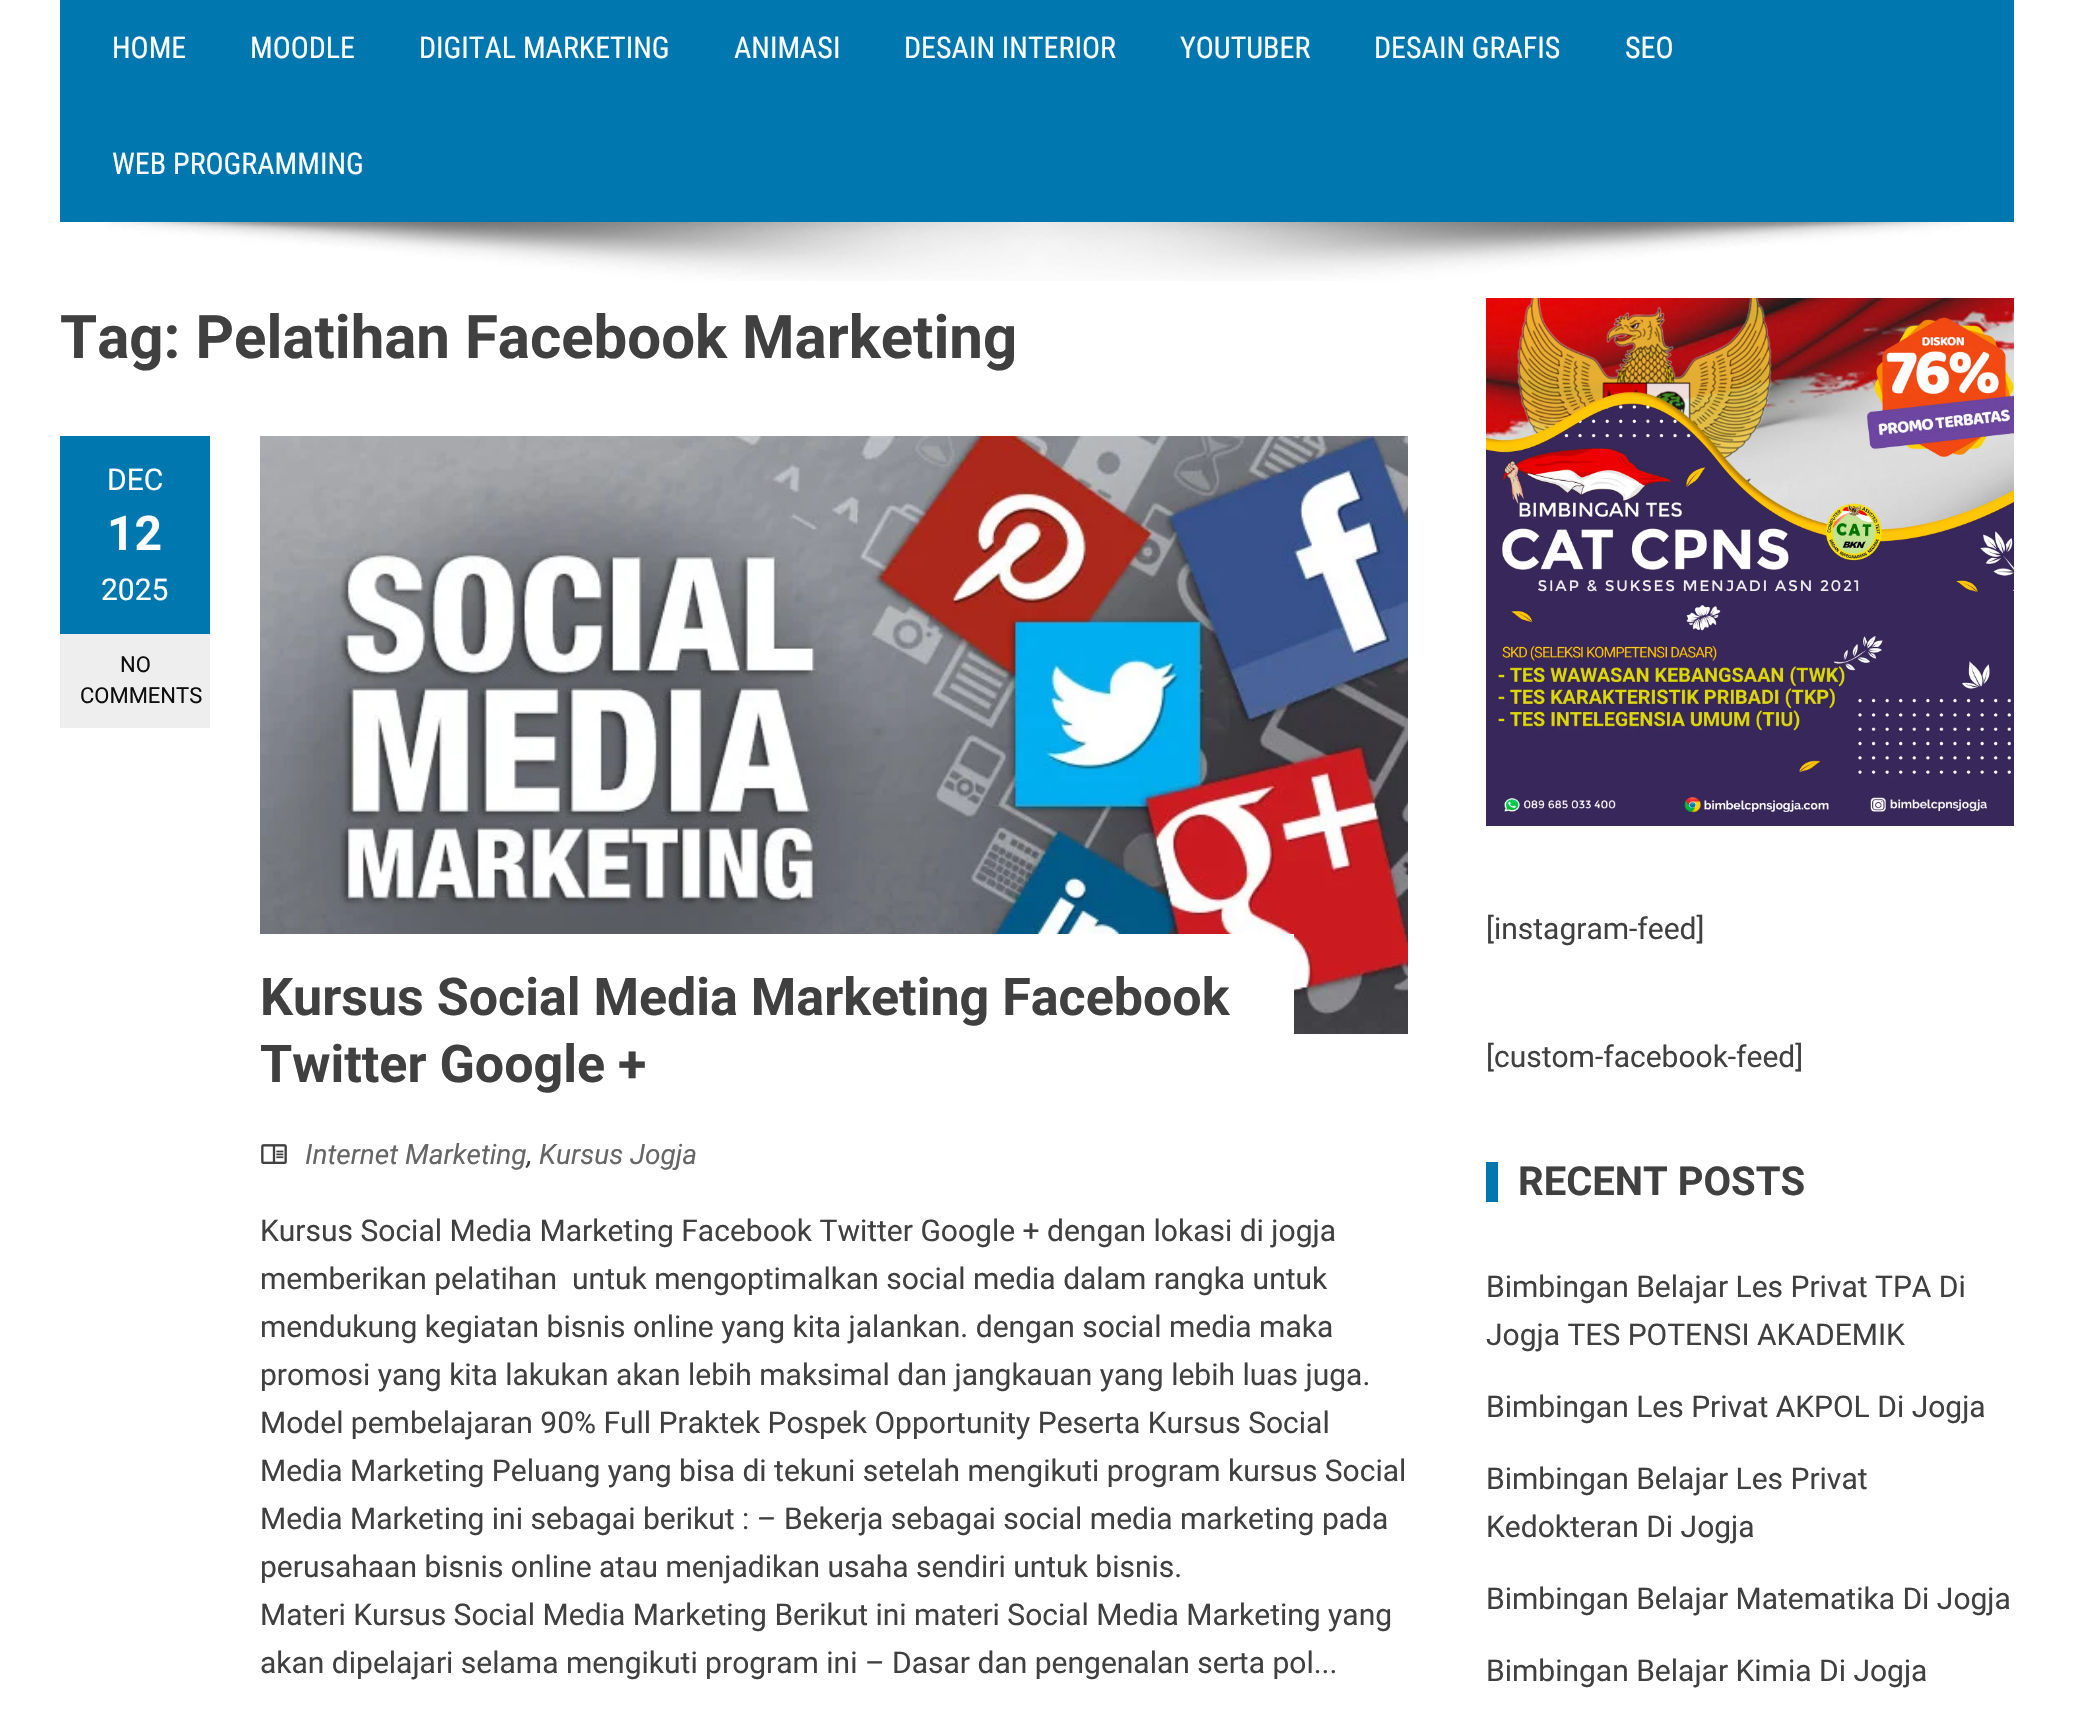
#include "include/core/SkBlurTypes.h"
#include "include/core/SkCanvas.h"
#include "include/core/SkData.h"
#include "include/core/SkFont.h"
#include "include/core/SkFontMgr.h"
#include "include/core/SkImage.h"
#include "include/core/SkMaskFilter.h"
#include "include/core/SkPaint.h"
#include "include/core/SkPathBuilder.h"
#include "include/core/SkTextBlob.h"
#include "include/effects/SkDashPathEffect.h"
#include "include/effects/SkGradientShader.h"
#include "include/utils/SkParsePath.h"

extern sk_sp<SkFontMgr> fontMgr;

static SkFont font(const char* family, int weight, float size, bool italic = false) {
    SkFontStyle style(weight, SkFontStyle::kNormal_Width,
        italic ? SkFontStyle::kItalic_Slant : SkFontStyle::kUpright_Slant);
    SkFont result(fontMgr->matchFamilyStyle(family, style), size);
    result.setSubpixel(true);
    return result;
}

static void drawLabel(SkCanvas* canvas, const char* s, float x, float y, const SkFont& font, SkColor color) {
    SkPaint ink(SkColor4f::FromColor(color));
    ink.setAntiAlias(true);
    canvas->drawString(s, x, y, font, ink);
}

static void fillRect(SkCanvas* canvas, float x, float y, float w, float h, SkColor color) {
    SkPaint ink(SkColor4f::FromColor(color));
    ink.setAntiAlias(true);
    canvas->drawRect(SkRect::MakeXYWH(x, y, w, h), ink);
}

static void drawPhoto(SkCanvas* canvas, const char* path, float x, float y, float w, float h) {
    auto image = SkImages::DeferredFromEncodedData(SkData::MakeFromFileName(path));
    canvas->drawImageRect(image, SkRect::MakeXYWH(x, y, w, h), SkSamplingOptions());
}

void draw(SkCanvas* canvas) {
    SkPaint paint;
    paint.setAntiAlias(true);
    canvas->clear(0xFFFFFFFF);
    fillRect(canvas, 60, 0, 1954, 222, 0xFF0078AF);
    SkFont font1 = font("Roboto Condensed", 400, 30);
    drawLabel(canvas, "HOME", 112, 58, font1, 0xFFFFFFFF);
    drawLabel(canvas, "MOODLE", 250, 58, font1, 0xFFFFFFFF);
    drawLabel(canvas, "DIGITAL MARKETING", 419, 58, font1, 0xFFFFFFFF);
    drawLabel(canvas, "ANIMASI", 734, 58, font1, 0xFFFFFFFF);
    drawLabel(canvas, "DESAIN INTERIOR", 904, 58, font1, 0xFFFFFFFF);
    drawLabel(canvas, "YOUTUBER", 1180, 58, font1, 0xFFFFFFFF);
    drawLabel(canvas, "DESAIN GRAFIS", 1374, 58, font1, 0xFFFFFFFF);
    drawLabel(canvas, "SEO", 1625, 58, font1, 0xFFFFFFFF);
    drawLabel(canvas, "WEB PROGRAMMING", 112, 174, font1, 0xFFFFFFFF);
    drawPhoto(canvas, "assets/img1.png", 105, 222, 1864, 59);
    SkFont font2 = font("Roboto", 700, 60);
    drawLabel(canvas, "Tag: Pelatihan Facebook Marketing", 60, 358, font2, 0xFF404040);
    fillRect(canvas, 60, 436, 150, 198, 0xFF0078AF);
    SkFont font3 = font("Roboto", 400, 30);
    drawLabel(canvas, "DEC", 107, 490, font3, 0xFFFFFFFF);
    SkFont font4 = font("Roboto", 700, 48);
    drawLabel(canvas, "12", 107, 550, font4, 0xFFFFFFFF);
    drawLabel(canvas, "2025", 101, 600, font3, 0xFFFFFFFF);
    fillRect(canvas, 60, 634, 150, 94, 0xFFEEEEEE);
    SkFont font5 = font("Roboto", 400, 22);
    drawLabel(canvas, "NO", 120, 672, font5, 0xFF0E0E0E);
    drawLabel(canvas, "COMMENTS", 80, 703, font5, 0xFF0E0E0E);
    drawPhoto(canvas, "assets/img2.png", 260, 436, 1148, 598);
    fillRect(canvas, 260, 934, 1034, 100, 0xFFFFFFFF);
    SkFont font6 = font("Roboto", 700, 52);
    drawLabel(canvas, "Kursus Social Media Marketing Facebook", 260, 1015, font6, 0xFF404040);
    drawLabel(canvas, "Twitter Google +", 260, 1082, font6, 0xFF404040);
    drawPhoto(canvas, "assets/img3.png", 261, 1144, 26, 20);
    SkFont font7 = font("Roboto", 400, 28, true);
    drawLabel(canvas, ",", 527, 1164, font7, 0xFF404040);
    drawLabel(canvas, "Internet Marketing", 305, 1164, font7, 0xFF666666);
    drawLabel(canvas, "Kursus Jogja", 539, 1164, font7, 0xFF666666);
    drawLabel(canvas, "Kursus Social Media Marketing Facebook Twitter Google + dengan lokasi di jogja", 260, 1241, font3, 0xFF404040);
    drawLabel(canvas, "memberikan pelatihan  untuk mengoptimalkan social media dalam rangka untuk", 260, 1289, font3, 0xFF404040);
    drawLabel(canvas, "mendukung kegiatan bisnis online yang kita jalankan. dengan social media maka", 260, 1337, font3, 0xFF404040);
    drawLabel(canvas, "promosi yang kita lakukan akan lebih maksimal dan jangkauan yang lebih luas juga.", 260, 1385, font3, 0xFF404040);
    drawLabel(canvas, "Model pembelajaran 90% Full Praktek Pospek Opportunity Peserta Kursus Social", 260, 1433, font3, 0xFF404040);
    drawLabel(canvas, "Media Marketing Peluang yang bisa di tekuni setelah mengikuti program kursus Social", 260, 1481, font3, 0xFF404040);
    drawLabel(canvas, "Media Marketing ini sebagai berikut : – Bekerja sebagai social media marketing pada", 260, 1529, font3, 0xFF404040);
    drawLabel(canvas, "perusahaan bisnis online atau menjadikan usaha sendiri untuk bisnis.", 260, 1577, font3, 0xFF404040);
    drawLabel(canvas, "Materi Kursus Social Media Marketing Berikut ini materi Social Media Marketing yang", 260, 1625, font3, 0xFF404040);
    drawLabel(canvas, "akan dipelajari selama mengikuti program ini – Dasar dan pengenalan serta pol...", 260, 1673, font3, 0xFF404040);
    drawPhoto(canvas, "assets/img4.png", 1486, 298, 528, 528);
    drawLabel(canvas, "[instagram-feed]", 1486, 939, font3, 0xFF404040);
    drawLabel(canvas, "[custom-facebook-feed]", 1486, 1067, font3, 0xFF404040);
    fillRect(canvas, 1486, 1162, 12, 40, 0xFF0078AF);
    SkFont font8 = font("Roboto", 700, 40);
    drawLabel(canvas, "RECENT POSTS", 1518, 1195, font8, 0xFF404040);
    drawLabel(canvas, "Bimbingan Belajar Les Privat TPA Di", 1486, 1297, font3, 0xFF404040);
    drawLabel(canvas, "Jogja TES POTENSI AKADEMIK", 1486, 1345, font3, 0xFF404040);
    drawLabel(canvas, "Bimbingan Les Privat AKPOL Di Jogja", 1486, 1417, font3, 0xFF404040);
    drawLabel(canvas, "Bimbingan Belajar Les Privat", 1486, 1489, font3, 0xFF404040);
    drawLabel(canvas, "Kedokteran Di Jogja", 1486, 1537, font3, 0xFF404040);
    drawLabel(canvas, "Bimbingan Belajar Matematika Di Jogja", 1486, 1609, font3, 0xFF404040);
    drawLabel(canvas, "Bimbingan Belajar Kimia Di Jogja", 1486, 1681, font3, 0xFF404040);
}
